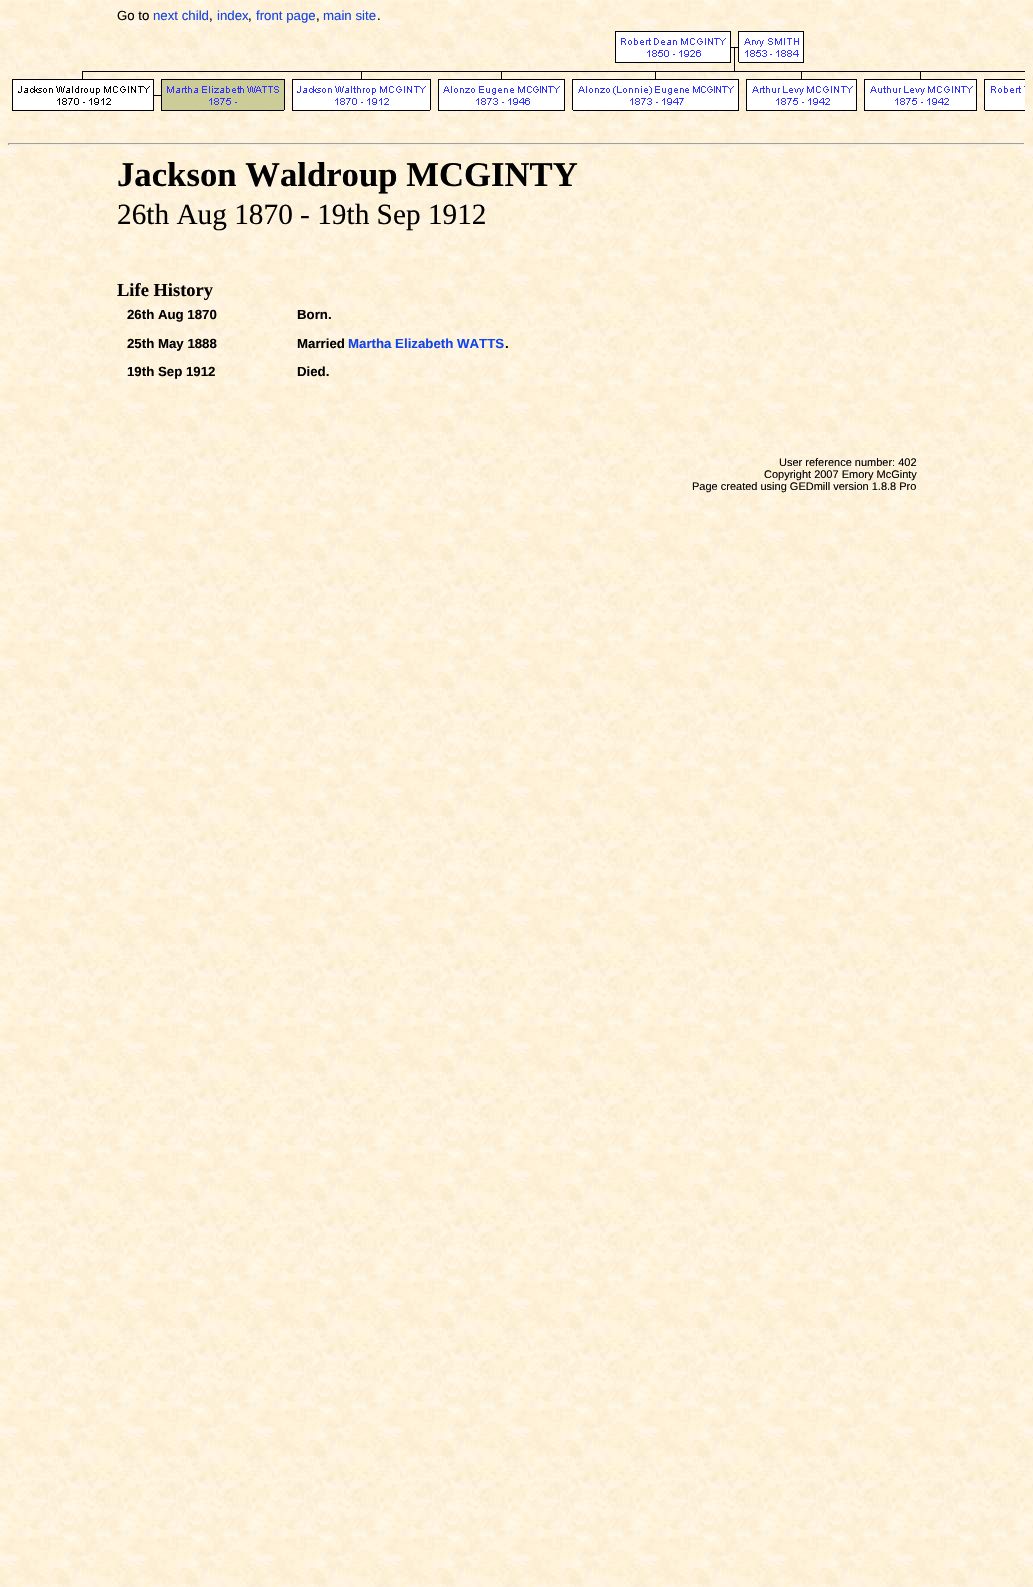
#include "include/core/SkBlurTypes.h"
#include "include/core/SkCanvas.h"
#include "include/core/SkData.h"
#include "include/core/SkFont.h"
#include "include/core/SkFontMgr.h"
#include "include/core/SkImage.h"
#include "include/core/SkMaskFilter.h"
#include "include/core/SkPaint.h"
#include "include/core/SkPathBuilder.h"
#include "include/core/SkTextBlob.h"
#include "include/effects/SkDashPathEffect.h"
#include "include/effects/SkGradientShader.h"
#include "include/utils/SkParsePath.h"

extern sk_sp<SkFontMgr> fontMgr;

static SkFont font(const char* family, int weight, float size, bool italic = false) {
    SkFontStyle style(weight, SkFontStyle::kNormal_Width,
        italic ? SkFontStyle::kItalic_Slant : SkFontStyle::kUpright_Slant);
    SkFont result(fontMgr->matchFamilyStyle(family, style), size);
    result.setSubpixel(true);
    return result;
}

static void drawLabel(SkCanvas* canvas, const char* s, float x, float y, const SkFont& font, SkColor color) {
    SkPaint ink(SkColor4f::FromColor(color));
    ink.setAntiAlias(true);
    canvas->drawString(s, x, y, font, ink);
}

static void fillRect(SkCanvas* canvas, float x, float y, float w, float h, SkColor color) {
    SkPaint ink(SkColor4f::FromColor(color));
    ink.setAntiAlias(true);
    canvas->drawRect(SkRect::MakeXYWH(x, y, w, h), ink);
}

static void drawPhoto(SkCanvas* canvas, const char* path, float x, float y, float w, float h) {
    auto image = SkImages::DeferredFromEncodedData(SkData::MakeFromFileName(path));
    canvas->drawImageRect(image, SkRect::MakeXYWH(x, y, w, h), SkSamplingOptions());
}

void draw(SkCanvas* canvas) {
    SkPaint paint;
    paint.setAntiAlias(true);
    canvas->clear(0xFFFFFFFF);
    drawPhoto(canvas, "assets/img1.png", 0, 0, 1033, 1587);
    SkFont font1 = font("Liberation Sans", 400, 13.25f);
    drawLabel(canvas, "Go to", 117, 20, font1, 0xFF000000);
    drawLabel(canvas, "next child", 153, 20, font1, 0xFF1344E9);
    drawLabel(canvas, ",", 209, 20, font1, 0xFF000000);
    drawLabel(canvas, "index", 217, 20, font1, 0xFF1344E9);
    drawLabel(canvas, ",", 248, 20, font1, 0xFF000000);
    drawLabel(canvas, "front page", 256, 20, font1, 0xFF1344E9);
    drawLabel(canvas, ",", 316, 20, font1, 0xFF000000);
    drawLabel(canvas, "main site", 323, 20, font1, 0xFF1344E9);
    drawLabel(canvas, ".", 377, 20, font1, 0xFF000000);
    drawPhoto(canvas, "assets/img2.png", 12, 31, 1013, 80);
    fillRect(canvas, 8, 143, 1017, 1, 0xFF9F9F9F);
    fillRect(canvas, 1024, 143, 1, 2, 0xFFEEEEEE);
    fillRect(canvas, 8, 144, 1017, 1, 0xFFEEEEEE);
    fillRect(canvas, 8, 143, 1, 2, 0xFF9F9F9F);
    SkFont font2 = font("Liberation Serif", 700, 34.7f);
    drawLabel(canvas, "Jackson Waldroup MCGINTY", 117, 186, font2, 0xFF000000);
    SkFont font3 = font("Liberation Serif", 400, 29.3f);
    drawLabel(canvas, "26th Aug 1870 - 19th Sep 1912", 117, 224, font3, 0xFF000000);
    SkFont font4 = font("Liberation Serif", 700, 18.5f);
    drawLabel(canvas, "Life History", 117, 296, font4, 0xFF000000);
    SkFont font5 = font("Liberation Sans", 700, 13.25f);
    drawLabel(canvas, "26th Aug 1870", 127, 319, font5, 0xFF000000);
    drawLabel(canvas, "Born.", 297, 319, font5, 0xFF000000);
    drawLabel(canvas, "25th May 1888", 127, 348, font5, 0xFF000000);
    drawLabel(canvas, "Married", 297, 348, font5, 0xFF000000);
    drawLabel(canvas, "Martha Elizabeth WATTS", 348, 348, font5, 0xFF1344E9);
    drawLabel(canvas, ".", 505, 348, font5, 0xFF000000);
    drawLabel(canvas, "19th Sep 1912", 127, 376, font5, 0xFF000000);
    drawLabel(canvas, "Died.", 297, 376, font5, 0xFF000000);
    SkFont font6 = font("Liberation Sans", 400, 11);
    drawLabel(canvas, "User reference number: 402", 779, 466, font6, 0xFF000000);
    drawLabel(canvas, "Copyright 2007 Emory McGinty", 764, 478, font6, 0xFF000000);
    drawLabel(canvas, "Page created using GEDmill version 1.8.8 Pro", 692, 490, font6, 0xFF000000);
}
